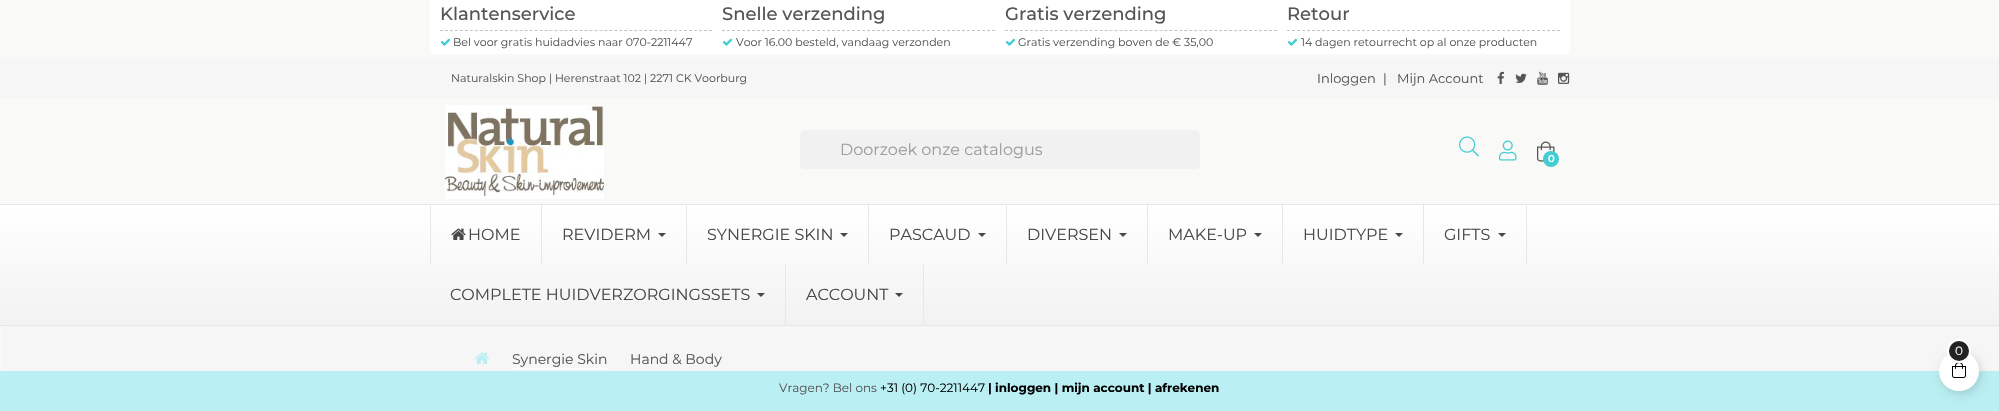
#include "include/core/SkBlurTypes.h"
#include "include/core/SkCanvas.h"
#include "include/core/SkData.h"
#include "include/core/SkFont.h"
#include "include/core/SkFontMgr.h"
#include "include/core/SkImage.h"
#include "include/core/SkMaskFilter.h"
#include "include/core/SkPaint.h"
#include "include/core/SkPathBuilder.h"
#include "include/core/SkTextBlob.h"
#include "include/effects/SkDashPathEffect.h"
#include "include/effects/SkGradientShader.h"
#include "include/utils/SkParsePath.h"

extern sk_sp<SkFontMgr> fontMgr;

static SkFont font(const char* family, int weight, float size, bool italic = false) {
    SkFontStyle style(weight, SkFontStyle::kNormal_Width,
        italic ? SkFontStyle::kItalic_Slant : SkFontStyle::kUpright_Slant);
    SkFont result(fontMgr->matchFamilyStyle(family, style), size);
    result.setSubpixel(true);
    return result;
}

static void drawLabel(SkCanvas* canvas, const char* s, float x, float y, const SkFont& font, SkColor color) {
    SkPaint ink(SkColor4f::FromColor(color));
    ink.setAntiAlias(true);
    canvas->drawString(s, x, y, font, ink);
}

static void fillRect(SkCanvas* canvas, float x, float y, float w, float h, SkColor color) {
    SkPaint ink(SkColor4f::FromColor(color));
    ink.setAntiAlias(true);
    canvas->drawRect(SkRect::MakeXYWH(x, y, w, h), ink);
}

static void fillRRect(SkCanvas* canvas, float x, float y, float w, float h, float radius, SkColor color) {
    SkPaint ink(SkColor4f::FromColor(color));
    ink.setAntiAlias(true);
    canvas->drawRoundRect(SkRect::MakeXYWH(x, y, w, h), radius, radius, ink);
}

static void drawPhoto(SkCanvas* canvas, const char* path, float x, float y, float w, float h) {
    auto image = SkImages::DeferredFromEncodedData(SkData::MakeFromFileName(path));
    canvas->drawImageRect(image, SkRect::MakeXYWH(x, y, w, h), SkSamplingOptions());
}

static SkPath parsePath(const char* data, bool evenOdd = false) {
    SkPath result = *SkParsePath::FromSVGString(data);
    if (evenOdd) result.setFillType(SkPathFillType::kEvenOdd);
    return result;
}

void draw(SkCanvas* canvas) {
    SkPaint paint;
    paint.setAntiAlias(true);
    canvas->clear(0xFFF9F9F7);
    fillRect(canvas, 430, 0, 1140, 54, 0xFFFFFFFF);
    SkFont font1 = font("Montserrat", 500, 18);
    drawLabel(canvas, "Klantenservice", 440, 20, font1, 0xFF555555);
    paint.setStroke(true);
    paint.setStrokeWidth(1);
    paint.setColor(0xFFC5C4C4);
    paint.setPathEffect(SkDashPathEffect::Make({{3, 1.98f}}, 0));
    canvas->drawPath(parsePath("M440 30.5H712"), paint);
    paint.setPathEffect(nullptr);
    drawPhoto(canvas, "assets/img1.png", 440, 38, 11, 8);
    SkFont font2 = font("Montserrat", 400, 11);
    drawLabel(canvas, "Bel voor gratis huidadvies naar 070-2211447", 453, 46, font2, 0xFF555555);
    drawLabel(canvas, "Snelle verzending", 722, 20, font1, 0xFF555555);
    paint.setPathEffect(SkDashPathEffect::Make({{3, 2}}, 0));
    canvas->drawPath(parsePath("M722 30.5H995"), paint);
    paint.setPathEffect(nullptr);
    drawPhoto(canvas, "assets/img1.png", 722, 38, 11, 8);
    drawLabel(canvas, "Voor 16.00 besteld, vandaag verzonden", 736, 46, font2, 0xFF555555);
    drawLabel(canvas, "Gratis verzending", 1005, 20, font1, 0xFF555555);
    paint.setPathEffect(SkDashPathEffect::Make({{3, 1.98f}}, 0));
    canvas->drawPath(parsePath("M1005 30.5H1277"), paint);
    paint.setPathEffect(nullptr);
    drawPhoto(canvas, "assets/img1.png", 1005, 38, 11, 8);
    drawLabel(canvas, "Gratis verzending boven de € 35,00", 1018, 46, font2, 0xFF555555);
    drawLabel(canvas, "Retour", 1287, 20, font1, 0xFF555555);
    paint.setPathEffect(SkDashPathEffect::Make({{3, 2}}, 0));
    canvas->drawPath(parsePath("M1287 30.5H1560"), paint);
    paint.setPathEffect(nullptr);
    drawPhoto(canvas, "assets/img1.png", 1287, 38, 11, 8);
    drawLabel(canvas, "14 dagen retourrecht op al onze producten", 1301, 46, font2, 0xFF555555);
    fillRect(canvas, 0, 59, 1999, 39, 0xFFF6F6F6);
    drawLabel(canvas, "Naturalskin Shop | Herenstraat 102 | 2271 CK Voorburg", 451, 82, font2, 0xFF555555);
    SkFont font3 = font("Montserrat", 400, 13);
    drawLabel(canvas, "Inloggen", 1317, 83, font3, 0xFF555555);
    drawLabel(canvas, "|", 1383, 83, font3, 0xFF555555);
    drawLabel(canvas, "Mijn Account", 1397, 83, font3, 0xFF555555);
    drawPhoto(canvas, "assets/img2.png", 1497, 71, 7, 13);
    drawPhoto(canvas, "assets/img3.png", 1515, 73, 12, 10);
    drawPhoto(canvas, "assets/img4.png", 1537, 71, 11, 14);
    drawPhoto(canvas, "assets/img5.png", 1558, 72, 12, 12);
    fillRRect(canvas, 800, 130, 400, 39, 5, 0xFFF1F1F1);
    SkFont font4 = font("Montserrat", 400, 16);
    drawLabel(canvas, "Doorzoek onze catalogus", 840, 155, font4, 0xFF9D9D9D);
    drawPhoto(canvas, "assets/img6.png", 445, 105, 159, 94);
    drawPhoto(canvas, "assets/img7.png", 1459, 136, 20, 21);
    drawPhoto(canvas, "assets/img8.png", 1499, 140, 18, 21);
    drawPhoto(canvas, "assets/img9.png", 1537, 141, 18, 21);
    paint.setStroke(false);
    paint.setColor(0xFF43CCD4);
    canvas->drawCircle(1551, 159, 8, paint);
    SkFont font5 = font("Montserrat", 600, 10);
    drawLabel(canvas, "0", 1548, 162, font5, 0xFFFFFFFF);
    {
        const SkColor colors[] = {0xFFFFFFFF, 0xFFF2F2F2};
        const float stops[] = {0, 1};
        const SkPoint ends[] = {{1000, 205}, {1000, 325}};
        paint.setShader(SkGradientShader::MakeLinear(ends, colors, stops, 2, SkTileMode::kClamp));
        paint.setAlpha(255);
    }
    canvas->drawRect(SkRect::MakeXYWH(0, 205, 1999, 120), paint);
    fillRect(canvas, 0, 204, 1999, 1, 0xFFE7E7E7);
    fillRect(canvas, 0, 325, 1999, 1, 0xFFE7E7E7);
    fillRect(canvas, 541, 205, 1, 60, 0xFFE7E7E7);
    fillRect(canvas, 430, 205, 1, 60, 0xFFE7E7E7);
    drawPhoto(canvas, "assets/img10.png", 451, 228, 15, 12);
    drawLabel(canvas, "HOME", 468, 240, font4, 0xFF484848);
    fillRect(canvas, 686, 205, 1, 60, 0xFFE7E7E7);
    drawLabel(canvas, "REVIDERM", 562, 240, font4, 0xFF484848);
    paint.setShader(nullptr);
    paint.setColor(0xFF484848);
    canvas->drawPath(parsePath("M658 233H666L662 237Z"), paint);
    fillRect(canvas, 868, 205, 1, 60, 0xFFE7E7E7);
    drawLabel(canvas, "SYNERGIE SKIN", 707, 240, font4, 0xFF484848);
    canvas->drawPath(parsePath("M840 233H848L844 237Z"), paint);
    fillRect(canvas, 1006, 205, 1, 60, 0xFFE7E7E7);
    drawLabel(canvas, "PASCAUD", 889, 240, font4, 0xFF484848);
    canvas->drawPath(parsePath("M978 233H986L982 237Z"), paint);
    fillRect(canvas, 1147, 205, 1, 60, 0xFFE7E7E7);
    drawLabel(canvas, "DIVERSEN", 1027, 240, font4, 0xFF484848);
    canvas->drawPath(parsePath("M1119 233H1127L1123 237Z"), paint);
    fillRect(canvas, 1282, 205, 1, 60, 0xFFE7E7E7);
    drawLabel(canvas, "MAKE-UP", 1168, 240, font4, 0xFF484848);
    canvas->drawPath(parsePath("M1254 233H1262L1258 237Z"), paint);
    fillRect(canvas, 1423, 205, 1, 60, 0xFFE7E7E7);
    drawLabel(canvas, "HUIDTYPE", 1303, 240, font4, 0xFF484848);
    canvas->drawPath(parsePath("M1395 233H1403L1399 237Z"), paint);
    fillRect(canvas, 1526, 205, 1, 60, 0xFFE7E7E7);
    drawLabel(canvas, "GIFTS", 1444, 240, font4, 0xFF484848);
    canvas->drawPath(parsePath("M1498 233H1506L1502 237Z"), paint);
    fillRect(canvas, 785, 265, 1, 60, 0xFFE7E7E7);
    drawLabel(canvas, "COMPLETE HUIDVERZORGINGSSETS", 450, 300, font4, 0xFF484848);
    canvas->drawPath(parsePath("M757 293H765L761 297Z"), paint);
    fillRect(canvas, 923, 265, 1, 60, 0xFFE7E7E7);
    drawLabel(canvas, "ACCOUNT", 806, 300, font4, 0xFF484848);
    canvas->drawPath(parsePath("M895 293H903L899 297Z"), paint);
    fillRect(canvas, 1, 326, 1998, 45, 0xFFF6F6F6);
    drawPhoto(canvas, "assets/img11.png", 474, 352, 15, 12);
    SkFont font6 = font("Montserrat", 400, 14);
    drawLabel(canvas, "Synergie Skin", 512, 364, font6, 0xFF555555);
    fillRect(canvas, 512, 368, 96, 1, 0xFFFFFFFF);
    drawLabel(canvas, "Hand & Body", 630, 364, font6, 0xFF555555);
    fillRect(canvas, 0, 371, 1999, 40, 0xFFBAF0F3);
    SkFont font7 = font("Montserrat", 400, 12);
    drawLabel(canvas, "Vragen? Bel ons", 779, 392, font7, 0xFF555555);
    drawLabel(canvas, "+31 (0) 70-2211447", 880, 392, font7, 0xFF000000);
    SkFont font8 = font("Montserrat", 700, 12);
    drawLabel(canvas, "| inloggen | mijn account | afrekenen", 988, 392, font8, 0xFF000000);
    paint.setColor(0x26000000);
    paint.setMaskFilter(SkMaskFilter::MakeBlur(kNormal_SkBlurStyle, 5));
    canvas->drawRoundRect(SkRect::MakeXYWH(1941, 354, 40, 40), 20, 20, paint);
    paint.setMaskFilter(nullptr);
    paint.setColor(0xFFFFFFFF);
    canvas->drawCircle(1959, 371, 20, paint);
    drawPhoto(canvas, "assets/img12.png", 1952, 362, 14, 16);
    paint.setStroke(true);
    paint.setStrokeWidth(2);
    canvas->drawCircle(1959, 351, 11, paint);
    paint.setStroke(false);
    paint.setColor(0xFF222222);
    canvas->drawCircle(1959, 351, 10, paint);
    drawLabel(canvas, "0", 1955, 355, font7, 0xFFFFFFFF);
}
